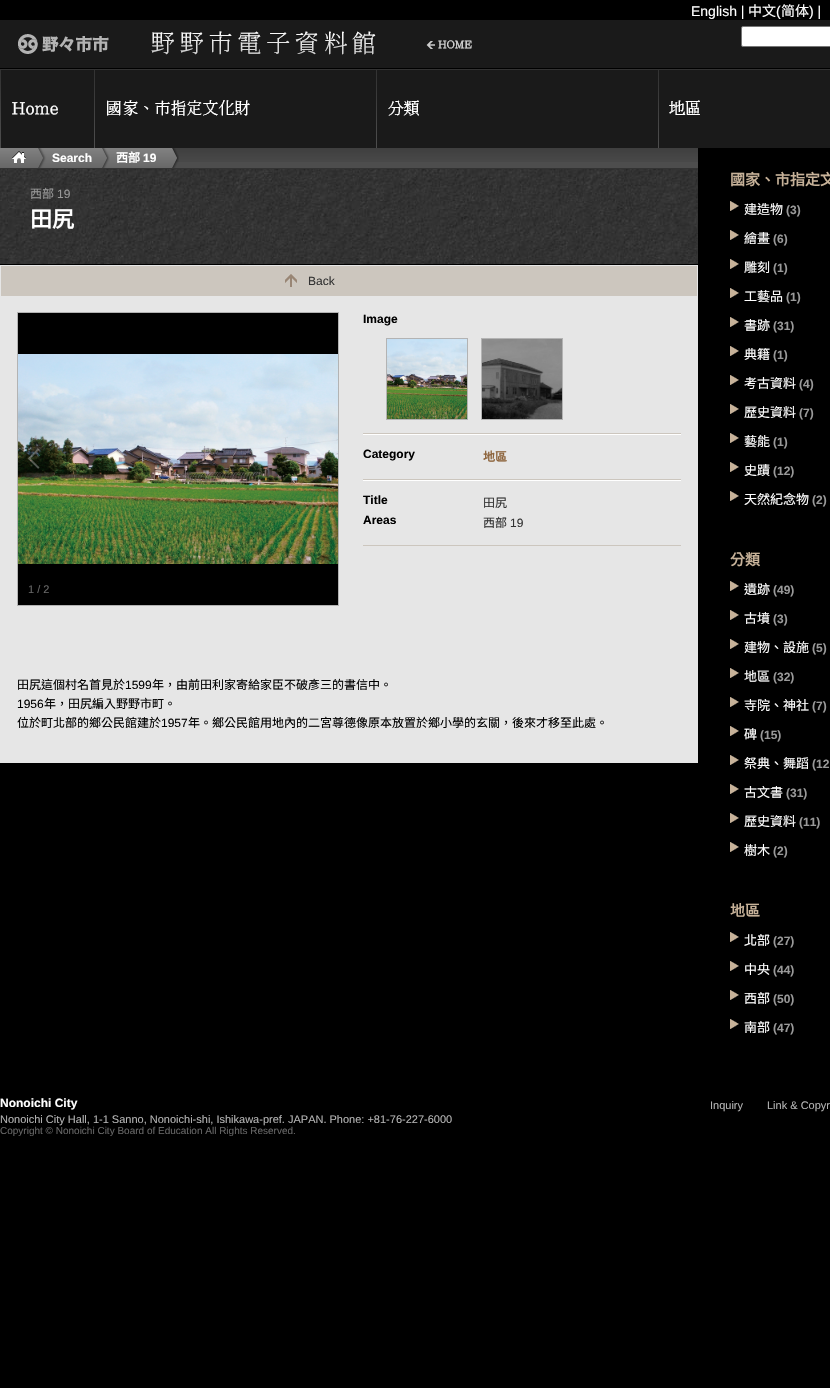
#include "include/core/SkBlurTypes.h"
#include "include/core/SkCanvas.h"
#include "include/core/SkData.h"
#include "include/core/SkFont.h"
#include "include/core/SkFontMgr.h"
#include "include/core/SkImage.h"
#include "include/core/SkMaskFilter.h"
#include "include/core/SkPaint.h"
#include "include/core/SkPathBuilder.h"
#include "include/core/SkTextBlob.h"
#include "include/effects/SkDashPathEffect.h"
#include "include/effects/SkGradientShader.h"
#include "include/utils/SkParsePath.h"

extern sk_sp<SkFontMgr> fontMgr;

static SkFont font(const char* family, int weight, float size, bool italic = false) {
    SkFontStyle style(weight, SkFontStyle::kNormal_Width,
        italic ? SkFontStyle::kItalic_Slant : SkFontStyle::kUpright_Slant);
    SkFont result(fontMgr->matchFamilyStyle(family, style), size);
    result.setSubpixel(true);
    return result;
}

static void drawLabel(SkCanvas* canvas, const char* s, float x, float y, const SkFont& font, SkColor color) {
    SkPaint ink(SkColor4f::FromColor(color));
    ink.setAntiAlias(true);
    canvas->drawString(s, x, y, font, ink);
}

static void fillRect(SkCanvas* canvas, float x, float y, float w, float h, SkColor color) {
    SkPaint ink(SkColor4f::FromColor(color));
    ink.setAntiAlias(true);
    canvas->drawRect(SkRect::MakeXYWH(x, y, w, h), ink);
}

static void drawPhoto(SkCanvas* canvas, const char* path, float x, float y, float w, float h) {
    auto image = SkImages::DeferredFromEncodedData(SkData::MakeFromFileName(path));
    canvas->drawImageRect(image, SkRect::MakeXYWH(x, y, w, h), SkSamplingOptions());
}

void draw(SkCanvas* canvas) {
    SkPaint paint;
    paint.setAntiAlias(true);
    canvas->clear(0xFF000000);
    SkFont font1 = font("Liberation Sans", 400, 14);
    drawLabel(canvas, "English |", 691, 16, font1, 0xFFFFFFFF);
    SkFont font2 = font("Noto Sans CJK TC", 400, 14);
    drawLabel(canvas, "中文", 748, 16, font2, 0xFFFFFFFF);
    drawLabel(canvas, "(", 776, 16, font1, 0xFFFFFFFF);
    drawLabel(canvas, "简体", 781, 16, font2, 0xFFFFFFFF);
    drawLabel(canvas, ") |", 809, 16, font1, 0xFFFFFFFF);
    fillRect(canvas, 0, 20, 830, 128, 0xFF1A1A1A);
    fillRect(canvas, 0, 68, 830, 1, 0xFF000000);
    drawPhoto(canvas, "assets/img1.png", 18, 31, 454, 24);
    paint.setColor(0xFFFFFFFF);
    canvas->drawRoundRect(SkRect::MakeXYWH(741.5f, 26.5f, 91, 20), 1.5f, 1.5f, paint);
    paint.setStroke(true);
    paint.setStrokeWidth(1);
    paint.setColor(0xFF767676);
    canvas->drawRoundRect(SkRect::MakeXYWH(741.5f, 26.5f, 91, 20), 1.5f, 1.5f, paint);
    fillRect(canvas, 0, 69, 830, 1, 0xFF333333);
    drawPhoto(canvas, "assets/img2.png", 0, 70, 58, 78);
    drawPhoto(canvas, "assets/img3.png", 94, 70, 156, 78);
    drawPhoto(canvas, "assets/img4.png", 376, 70, 43, 78);
    drawPhoto(canvas, "assets/img5.png", 658, 70, 42, 78);
    fillRect(canvas, 0, 265, 698, 498, 0xFFE6E6E6);
    fillRect(canvas, 172, 162, 526, 6, 0xFF4D4D4D);
    drawPhoto(canvas, "assets/img6.png", 172, 148, 526, 14);
    drawPhoto(canvas, "assets/img7.png", 0, 148, 38, 20);
    drawPhoto(canvas, "assets/img8.png", 38, 148, 64, 20);
    SkFont font3 = font("Liberation Sans", 700, 12);
    drawLabel(canvas, "Search", 52, 162, font3, 0xFFFFFFFF);
    drawPhoto(canvas, "assets/img9.png", 132, 148, 47, 20);
    drawPhoto(canvas, "assets/img10.png", 102, 148, 30, 20);
    SkFont font4 = font("Noto Sans CJK TC", 700, 12);
    drawLabel(canvas, "西部", 116, 162, font4, 0xFFFFFFFF);
    drawLabel(canvas, "19", 143, 162, font3, 0xFFFFFFFF);
    drawPhoto(canvas, "assets/img11.png", 0, 169, 698, 95);
    fillRect(canvas, 0, 168, 698, 1, 0xFF333333);
    SkFont font5 = font("Noto Sans CJK TC", 400, 12);
    drawLabel(canvas, "西部", 30, 198, font5, 0xFF999999);
    SkFont font6 = font("Liberation Sans", 400, 12);
    drawLabel(canvas, "19", 57, 198, font6, 0xFF999999);
    SkFont font7 = font("Noto Sans CJK TC", 700, 22);
    drawLabel(canvas, "田尻", 30, 227, font7, 0xFFFFFFFF);
    fillRect(canvas, 1, 266, 696, 30, 0xFFCCC6BE);
    drawPhoto(canvas, "assets/img12.png", 285, 274, 12, 13);
    drawLabel(canvas, "Back", 308, 285, font6, 0xFF333333);
    drawLabel(canvas, "Image", 363, 323, font3, 0xFF000000);
    fillRect(canvas, 363, 434, 318, 1, 0xFFFFFFFF);
    fillRect(canvas, 363, 479, 318, 1, 0xFFCCC6BE);
    drawLabel(canvas, "Category", 363, 458, font3, 0xFF000000);
    drawLabel(canvas, "地區", 483, 461, font4, 0xFF8C6239);
    fillRect(canvas, 363, 480, 318, 1, 0xFFFFFFFF);
    fillRect(canvas, 363, 545, 318, 1, 0xFFCCC6BE);
    drawLabel(canvas, "Title", 363, 504, font3, 0xFF000000);
    drawLabel(canvas, "田尻", 483, 507, font5, 0xFF333333);
    drawLabel(canvas, "Areas", 363, 524, font3, 0xFF000000);
    drawLabel(canvas, "西部", 483, 527, font5, 0xFF333333);
    drawLabel(canvas, "19", 510, 527, font6, 0xFF333333);
    fillRect(canvas, 363, 433, 318, 1, 0xFFCCC6BE);
    paint.setColor(0xFFB3B3B3);
    canvas->drawRect(SkRect::MakeXYWH(386.5f, 338.5f, 81, 81), paint);
    drawPhoto(canvas, "assets/img13.png", 387, 339, 80, 80);
    paint.setStroke(false);
    paint.setColor(0xFF000000);
    canvas->drawRect(SkRect::MakeXYWH(481.5f, 338.5f, 81, 81), paint);
    paint.setStroke(true);
    paint.setColor(0xFFB3B3B3);
    canvas->drawRect(SkRect::MakeXYWH(481.5f, 338.5f, 81, 81), paint);
    drawPhoto(canvas, "assets/img14.png", 482, 339, 80, 80);
    paint.setStroke(false);
    paint.setColor(0xFF000000);
    canvas->drawRect(SkRect::MakeXYWH(17.5f, 312.5f, 321, 293), paint);
    paint.setStroke(true);
    paint.setColor(0xFFB3B3B3);
    canvas->drawRect(SkRect::MakeXYWH(17.5f, 312.5f, 321, 293), paint);
    drawPhoto(canvas, "assets/img15.png", 18, 354, 320, 210);
    drawPhoto(canvas, "assets/img16.png", 28, 448, 12, 21);
    drawPhoto(canvas, "assets/img17.png", 314, 449, 12, 20);
    SkFont font8 = font("Liberation Sans", 400, 11);
    drawLabel(canvas, "1 / 2", 28, 593, font8, 0xFF666666);
    drawLabel(canvas, "田尻這個村名首見於", 17, 689, font5, 0xFF000000);
    drawLabel(canvas, "1599", 125, 689, font6, 0xFF000000);
    drawLabel(canvas, "年，由前田利家寄給家臣不破彥三的書信中。", 152, 689, font5, 0xFF000000);
    drawLabel(canvas, "1956", 17, 708, font6, 0xFF000000);
    drawLabel(canvas, "年，田尻編入野野市町。", 44, 708, font5, 0xFF000000);
    drawLabel(canvas, "位於町北部的鄉公民館建於", 17, 727, font5, 0xFF000000);
    drawLabel(canvas, "1957", 161, 727, font6, 0xFF000000);
    drawLabel(canvas, "年。鄉公民館用地內的二宮尊德像原本放置於鄉小學的玄關，後來才移至此處。", 188, 727, font5, 0xFF000000);
    SkFont font9 = font("Noto Sans CJK TC", 700, 15);
    drawLabel(canvas, "國家、市指定文", 730, 185, font9, 0xFFC7B299);
    drawPhoto(canvas, "assets/img18.png", 730, 201, 9, 10);
    SkFont font10 = font("Noto Sans CJK TC", 400, 13);
    drawLabel(canvas, "建造物", 744, 214, font10, 0xFFFFFFFF);
    drawLabel(canvas, "(3)", 786, 214, font3, 0xFF999999);
    drawPhoto(canvas, "assets/img18.png", 730, 230, 9, 10);
    drawLabel(canvas, "繪畫", 744, 243, font10, 0xFFFFFFFF);
    drawLabel(canvas, "(6)", 773, 243, font3, 0xFF999999);
    drawPhoto(canvas, "assets/img18.png", 730, 259, 9, 10);
    drawLabel(canvas, "雕刻", 744, 272, font10, 0xFFFFFFFF);
    drawLabel(canvas, "(1)", 773, 272, font3, 0xFF999999);
    drawPhoto(canvas, "assets/img18.png", 730, 288, 9, 10);
    drawLabel(canvas, "工藝品", 744, 301, font10, 0xFFFFFFFF);
    drawLabel(canvas, "(1)", 786, 301, font3, 0xFF999999);
    drawPhoto(canvas, "assets/img18.png", 730, 317, 9, 10);
    drawLabel(canvas, "書跡", 744, 330, font10, 0xFFFFFFFF);
    drawLabel(canvas, "(31)", 773, 330, font3, 0xFF999999);
    drawPhoto(canvas, "assets/img18.png", 730, 346, 9, 10);
    drawLabel(canvas, "典籍", 744, 359, font10, 0xFFFFFFFF);
    drawLabel(canvas, "(1)", 773, 359, font3, 0xFF999999);
    drawPhoto(canvas, "assets/img18.png", 730, 375, 9, 10);
    drawLabel(canvas, "考古資料", 744, 388, font10, 0xFFFFFFFF);
    drawLabel(canvas, "(4)", 799, 388, font3, 0xFF999999);
    drawPhoto(canvas, "assets/img18.png", 730, 404, 9, 10);
    drawLabel(canvas, "歷史資料", 744, 417, font10, 0xFFFFFFFF);
    drawLabel(canvas, "(7)", 799, 417, font3, 0xFF999999);
    drawPhoto(canvas, "assets/img18.png", 730, 433, 9, 10);
    drawLabel(canvas, "藝能", 744, 446, font10, 0xFFFFFFFF);
    drawLabel(canvas, "(1)", 773, 446, font3, 0xFF999999);
    drawPhoto(canvas, "assets/img18.png", 730, 462, 9, 10);
    drawLabel(canvas, "史蹟", 744, 475, font10, 0xFFFFFFFF);
    drawLabel(canvas, "(12)", 773, 475, font3, 0xFF999999);
    drawPhoto(canvas, "assets/img18.png", 730, 491, 9, 10);
    drawLabel(canvas, "天然紀念物", 744, 504, font10, 0xFFFFFFFF);
    drawLabel(canvas, "(2)", 812, 504, font3, 0xFF999999);
    drawLabel(canvas, "分類", 730, 565, font9, 0xFFC7B299);
    drawPhoto(canvas, "assets/img18.png", 730, 581, 9, 10);
    drawLabel(canvas, "遺跡", 744, 594, font10, 0xFFFFFFFF);
    drawLabel(canvas, "(49)", 773, 594, font3, 0xFF999999);
    drawPhoto(canvas, "assets/img18.png", 730, 610, 9, 10);
    drawLabel(canvas, "古墳", 744, 623, font10, 0xFFFFFFFF);
    drawLabel(canvas, "(3)", 773, 623, font3, 0xFF999999);
    drawPhoto(canvas, "assets/img18.png", 730, 639, 9, 10);
    drawLabel(canvas, "建物、設施", 744, 652, font10, 0xFFFFFFFF);
    drawLabel(canvas, "(5)", 812, 652, font3, 0xFF999999);
    drawPhoto(canvas, "assets/img18.png", 730, 668, 9, 10);
    drawLabel(canvas, "地區", 744, 681, font10, 0xFFFFFFFF);
    drawLabel(canvas, "(32)", 773, 681, font3, 0xFF999999);
    drawPhoto(canvas, "assets/img18.png", 730, 697, 9, 10);
    drawLabel(canvas, "寺院、神社", 744, 710, font10, 0xFFFFFFFF);
    drawLabel(canvas, "(7)", 812, 710, font3, 0xFF999999);
    drawPhoto(canvas, "assets/img18.png", 730, 726, 9, 10);
    drawLabel(canvas, "碑", 744, 739, font10, 0xFFFFFFFF);
    drawLabel(canvas, "(15)", 760, 739, font3, 0xFF999999);
    drawPhoto(canvas, "assets/img18.png", 730, 755, 9, 10);
    drawLabel(canvas, "祭典、舞蹈", 744, 768, font10, 0xFFFFFFFF);
    drawLabel(canvas, "(12", 812, 768, font3, 0xFF999999);
    drawPhoto(canvas, "assets/img18.png", 730, 784, 9, 10);
    drawLabel(canvas, "古文書", 744, 797, font10, 0xFFFFFFFF);
    drawLabel(canvas, "(31)", 786, 797, font3, 0xFF999999);
    drawPhoto(canvas, "assets/img18.png", 730, 813, 9, 10);
    drawLabel(canvas, "歷史資料", 744, 826, font10, 0xFFFFFFFF);
    drawLabel(canvas, "(11)", 799, 826, font3, 0xFF999999);
    drawPhoto(canvas, "assets/img18.png", 730, 842, 9, 10);
    drawLabel(canvas, "樹木", 744, 855, font10, 0xFFFFFFFF);
    drawLabel(canvas, "(2)", 773, 855, font3, 0xFF999999);
    drawLabel(canvas, "地區", 730, 916, font9, 0xFFC7B299);
    drawPhoto(canvas, "assets/img18.png", 730, 932, 9, 10);
    drawLabel(canvas, "北部", 744, 945, font10, 0xFFFFFFFF);
    drawLabel(canvas, "(27)", 773, 945, font3, 0xFF999999);
    drawPhoto(canvas, "assets/img18.png", 730, 961, 9, 10);
    drawLabel(canvas, "中央", 744, 974, font10, 0xFFFFFFFF);
    drawLabel(canvas, "(44)", 773, 974, font3, 0xFF999999);
    drawPhoto(canvas, "assets/img18.png", 730, 990, 9, 10);
    drawLabel(canvas, "西部", 744, 1003, font10, 0xFFFFFFFF);
    drawLabel(canvas, "(50)", 773, 1003, font3, 0xFF999999);
    drawPhoto(canvas, "assets/img18.png", 730, 1019, 9, 10);
    drawLabel(canvas, "南部", 744, 1032, font10, 0xFFFFFFFF);
    drawLabel(canvas, "(47)", 773, 1032, font3, 0xFF999999);
    drawLabel(canvas, "Nonoichi City", 0, 1107, font3, 0xFFFFFFFF);
    drawLabel(canvas, "Inquiry", 710, 1109, font8, 0xFFB3B3B3);
    drawLabel(canvas, "Link & Copyr", 767, 1109, font8, 0xFFB3B3B3);
    drawLabel(canvas, "Nonoichi City Hall, 1-1 Sanno, Nonoichi-shi, Ishikawa-pref. JAPAN. Phone: +81-76-227-6000", 0, 1123, font8, 0xFFB3B3B3);
    SkFont font11 = font("Liberation Sans", 400, 10);
    drawLabel(canvas, "Copyright © Nonoichi City Board of Education All Rights Reserved.", 0, 1134, font11, 0xFF666666);
}
